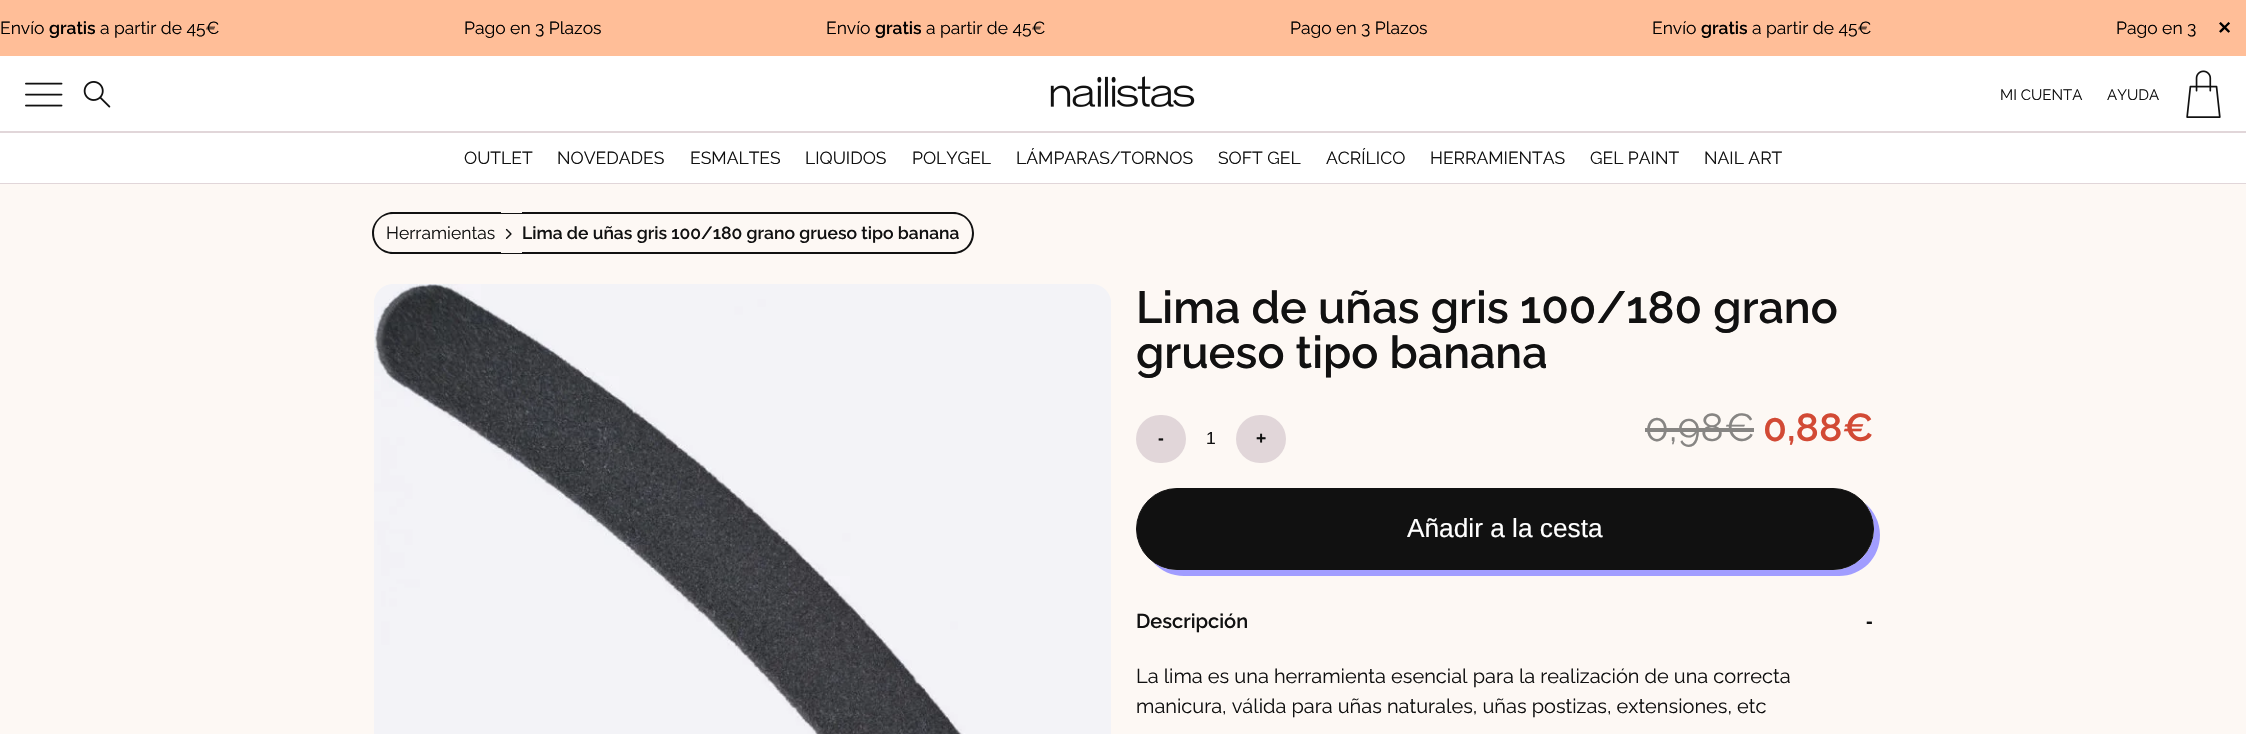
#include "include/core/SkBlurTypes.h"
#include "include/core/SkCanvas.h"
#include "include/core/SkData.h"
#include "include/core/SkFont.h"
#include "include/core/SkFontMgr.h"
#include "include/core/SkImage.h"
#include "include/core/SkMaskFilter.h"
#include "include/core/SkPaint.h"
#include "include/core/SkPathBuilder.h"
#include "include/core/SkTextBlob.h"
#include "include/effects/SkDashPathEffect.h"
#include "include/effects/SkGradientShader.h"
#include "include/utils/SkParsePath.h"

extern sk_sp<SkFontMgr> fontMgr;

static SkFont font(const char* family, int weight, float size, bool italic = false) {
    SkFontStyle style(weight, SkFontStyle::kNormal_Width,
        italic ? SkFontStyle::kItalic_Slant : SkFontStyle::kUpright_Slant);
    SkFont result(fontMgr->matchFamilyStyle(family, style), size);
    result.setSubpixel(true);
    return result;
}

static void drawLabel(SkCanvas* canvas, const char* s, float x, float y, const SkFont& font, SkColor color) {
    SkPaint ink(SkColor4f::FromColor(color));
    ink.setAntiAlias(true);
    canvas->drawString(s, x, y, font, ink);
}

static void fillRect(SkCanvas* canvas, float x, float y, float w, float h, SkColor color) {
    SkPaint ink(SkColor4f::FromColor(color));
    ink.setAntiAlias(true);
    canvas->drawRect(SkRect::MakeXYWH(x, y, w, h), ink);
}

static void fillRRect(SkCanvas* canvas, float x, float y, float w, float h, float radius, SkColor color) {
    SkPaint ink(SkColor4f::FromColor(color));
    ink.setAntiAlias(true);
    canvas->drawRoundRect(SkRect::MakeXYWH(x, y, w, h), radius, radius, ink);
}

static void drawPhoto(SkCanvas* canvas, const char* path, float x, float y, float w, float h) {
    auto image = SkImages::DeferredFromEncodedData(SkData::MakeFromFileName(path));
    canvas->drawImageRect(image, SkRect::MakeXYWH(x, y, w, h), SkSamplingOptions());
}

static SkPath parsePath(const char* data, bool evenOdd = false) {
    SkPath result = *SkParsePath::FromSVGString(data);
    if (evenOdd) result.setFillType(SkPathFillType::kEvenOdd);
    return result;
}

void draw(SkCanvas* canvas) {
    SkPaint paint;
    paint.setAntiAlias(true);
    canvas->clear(0xFFFFFFFF);
    fillRect(canvas, 0, 0, 2246, 56, 0xFFFFBE98);
    SkFont font1 = font("Raleway", 100, 17.5f);
    drawLabel(canvas, "Envío", 0, 34, font1, 0xFF000000);
    SkFont font2 = font("Raleway", 600, 17.5f);
    drawLabel(canvas, "gratis", 49, 34, font2, 0xFF000000);
    drawLabel(canvas, "a partir de 45€", 100, 34, font1, 0xFF000000);
    drawLabel(canvas, "Pago en 3 Plazos", 464, 34, font1, 0xFF000000);
    drawLabel(canvas, "Envío", 826, 34, font1, 0xFF000000);
    drawLabel(canvas, "gratis", 875, 34, font2, 0xFF000000);
    drawLabel(canvas, "a partir de 45€", 926, 34, font1, 0xFF000000);
    drawLabel(canvas, "Pago en 3 Plazos", 1290, 34, font1, 0xFF000000);
    drawLabel(canvas, "Envío", 1652, 34, font1, 0xFF000000);
    drawLabel(canvas, "gratis", 1701, 34, font2, 0xFF000000);
    drawLabel(canvas, "a partir de 45€", 1752, 34, font1, 0xFF000000);
    drawLabel(canvas, "Pago en 3", 2116, 34, font1, 0xFF000000);
    SkFont font3 = font("DejaVu Sans", 700, 17.5f);
    drawLabel(canvas, "✕", 2217, 34, font3, 0xFF000000);
    fillRect(canvas, 0, 131, 2246, 2, 0xFFE1D6D9);
    drawPhoto(canvas, "assets/img1.png", 25, 82, 38, 25);
    drawPhoto(canvas, "assets/img2.png", 83, 81, 28, 27);
    drawPhoto(canvas, "assets/img3.png", 1050, 76, 145, 31);
    SkFont font4 = font("Raleway", 100, 15);
    drawLabel(canvas, "MI CUENTA", 2000, 100, font4, 0xFF111111);
    drawLabel(canvas, "AYUDA", 2107, 100, font4, 0xFF111111);
    drawPhoto(canvas, "assets/img4.png", 2186, 70, 35, 48);
    fillRect(canvas, 0, 183, 2246, 1, 0xFFE1D6D9);
    drawLabel(canvas, "OUTLET", 464, 164, font1, 0xFF111111);
    drawLabel(canvas, "NOVEDADES", 557, 164, font1, 0xFF111111);
    drawLabel(canvas, "ESMALTES", 690, 164, font1, 0xFF111111);
    drawLabel(canvas, "LIQUIDOS", 805, 164, font1, 0xFF111111);
    drawLabel(canvas, "POLYGEL", 912, 164, font1, 0xFF111111);
    drawLabel(canvas, "LÁMPARAS/TORNOS", 1016, 164, font1, 0xFF111111);
    drawLabel(canvas, "SOFT GEL", 1218, 164, font1, 0xFF111111);
    drawLabel(canvas, "ACRÍLICO", 1326, 164, font1, 0xFF111111);
    drawLabel(canvas, "HERRAMIENTAS", 1430, 164, font1, 0xFF111111);
    drawLabel(canvas, "GEL PAINT", 1590, 164, font1, 0xFF111111);
    drawLabel(canvas, "NAIL ART", 1704, 164, font1, 0xFF111111);
    fillRect(canvas, 0, 184, 2246, 550, 0xFFFDF8F4);
    paint.setColor(0xFF111111);
    canvas->drawPath(parsePath("M393 212H501V254H393C382 254 372 245 372 233C372 222 382 212 393 212ZM393 214H501V252H393C382 252 374 244 374 233C374 222 382 214 393 214Z", true), paint);
    drawLabel(canvas, "Herramientas", 386, 239, font1, 0xFF111111);
    fillRect(canvas, 500, 213, 24, 1, 0xFF111111);
    fillRect(canvas, 500, 253, 24, 1, 0xFF111111);
    drawPhoto(canvas, "assets/img5.png", 505, 228, 7, 11);
    canvas->drawPath(parsePath("M522 212H953C965 212 974 222 974 233C974 245 965 254 953 254H522ZM522 214H953C964 214 972 222 972 233C972 244 964 252 953 252H522Z", true), paint);
    drawLabel(canvas, "Lima de uñas gris 100/180 grano grueso tipo banana", 522, 239, font2, 0xFF111111);
    drawPhoto(canvas, "assets/img6.png", 374, 284, 737, 450);
    SkFont font5 = font("Raleway", 600, 45);
    drawLabel(canvas, "Lima de uñas gris 100/180 grano", 1136, 323, font5, 0xFF111111);
    drawLabel(canvas, "grueso tipo banana", 1136, 368, font5, 0xFF111111);
    fillRRect(canvas, 1136, 415, 50, 48, 24, 0xFFE1D6D9);
    SkFont font6 = font("Liberation Sans", 700, 17.5f);
    drawLabel(canvas, "-", 1158, 444, font6, 0xFF111111);
    SkFont font7 = font("Liberation Sans", 400, 17.5f);
    drawLabel(canvas, "1", 1206, 444, font7, 0xFF111111);
    fillRRect(canvas, 1236, 415, 50, 48, 24, 0xFFE1D6D9);
    drawLabel(canvas, "+", 1256, 444, font6, 0xFF111111);
    paint.setColor(0xFFA19DFF);
    canvas->drawPath(parsePath("M1153 562C1161 571 1172 576 1184 576H1839C1862 576 1880 558 1880 535C1880 522 1874 511 1865 503C1870 510 1874 519 1874 529C1874 552 1855 570 1832 570H1178C1168 570 1160 567 1153 562Z"), paint);
    paint.setColor(0xFF111111);
    canvas->drawRoundRect(SkRect::MakeXYWH(1136.5f, 488.5f, 737, 81), 40.5f, 40.5f, paint);
    paint.setStroke(true);
    paint.setStrokeWidth(1);
    canvas->drawRoundRect(SkRect::MakeXYWH(1136.5f, 488.5f, 737, 81), 40.5f, 40.5f, paint);
    SkFont font8 = font("Liberation Sans", 400, 26.25f);
    drawLabel(canvas, "Añadir a la cesta", 1407, 537, font8, 0xFFFFFFFF);
    SkFont font9 = font("Raleway", 100, 39);
    drawLabel(canvas, "0,98€", 1645, 441, font9, 0xFF878583);
    fillRect(canvas, 1645, 428, 109, 4, 0xFF878583);
    SkFont font10 = font("Raleway", 600, 39);
    drawLabel(canvas, "0,88€", 1763, 441, font10, 0xFFD24A35);
    SkFont font11 = font("Raleway", 600, 20);
    drawLabel(canvas, "Descripción", 1136, 628, font11, 0xFF111111);
    SkFont font12 = font("Liberation Sans", 700, 20);
    drawLabel(canvas, "-", 1866, 628, font12, 0xFF111111);
    SkFont font13 = font("Raleway", 100, 20);
    drawLabel(canvas, "La lima es una herramienta esencial para la realización de una correcta", 1136, 683, font13, 0xFF111111);
    drawLabel(canvas, "manicura, válida para uñas naturales, uñas postizas, extensiones, etc", 1136, 713, font13, 0xFF111111);
}
